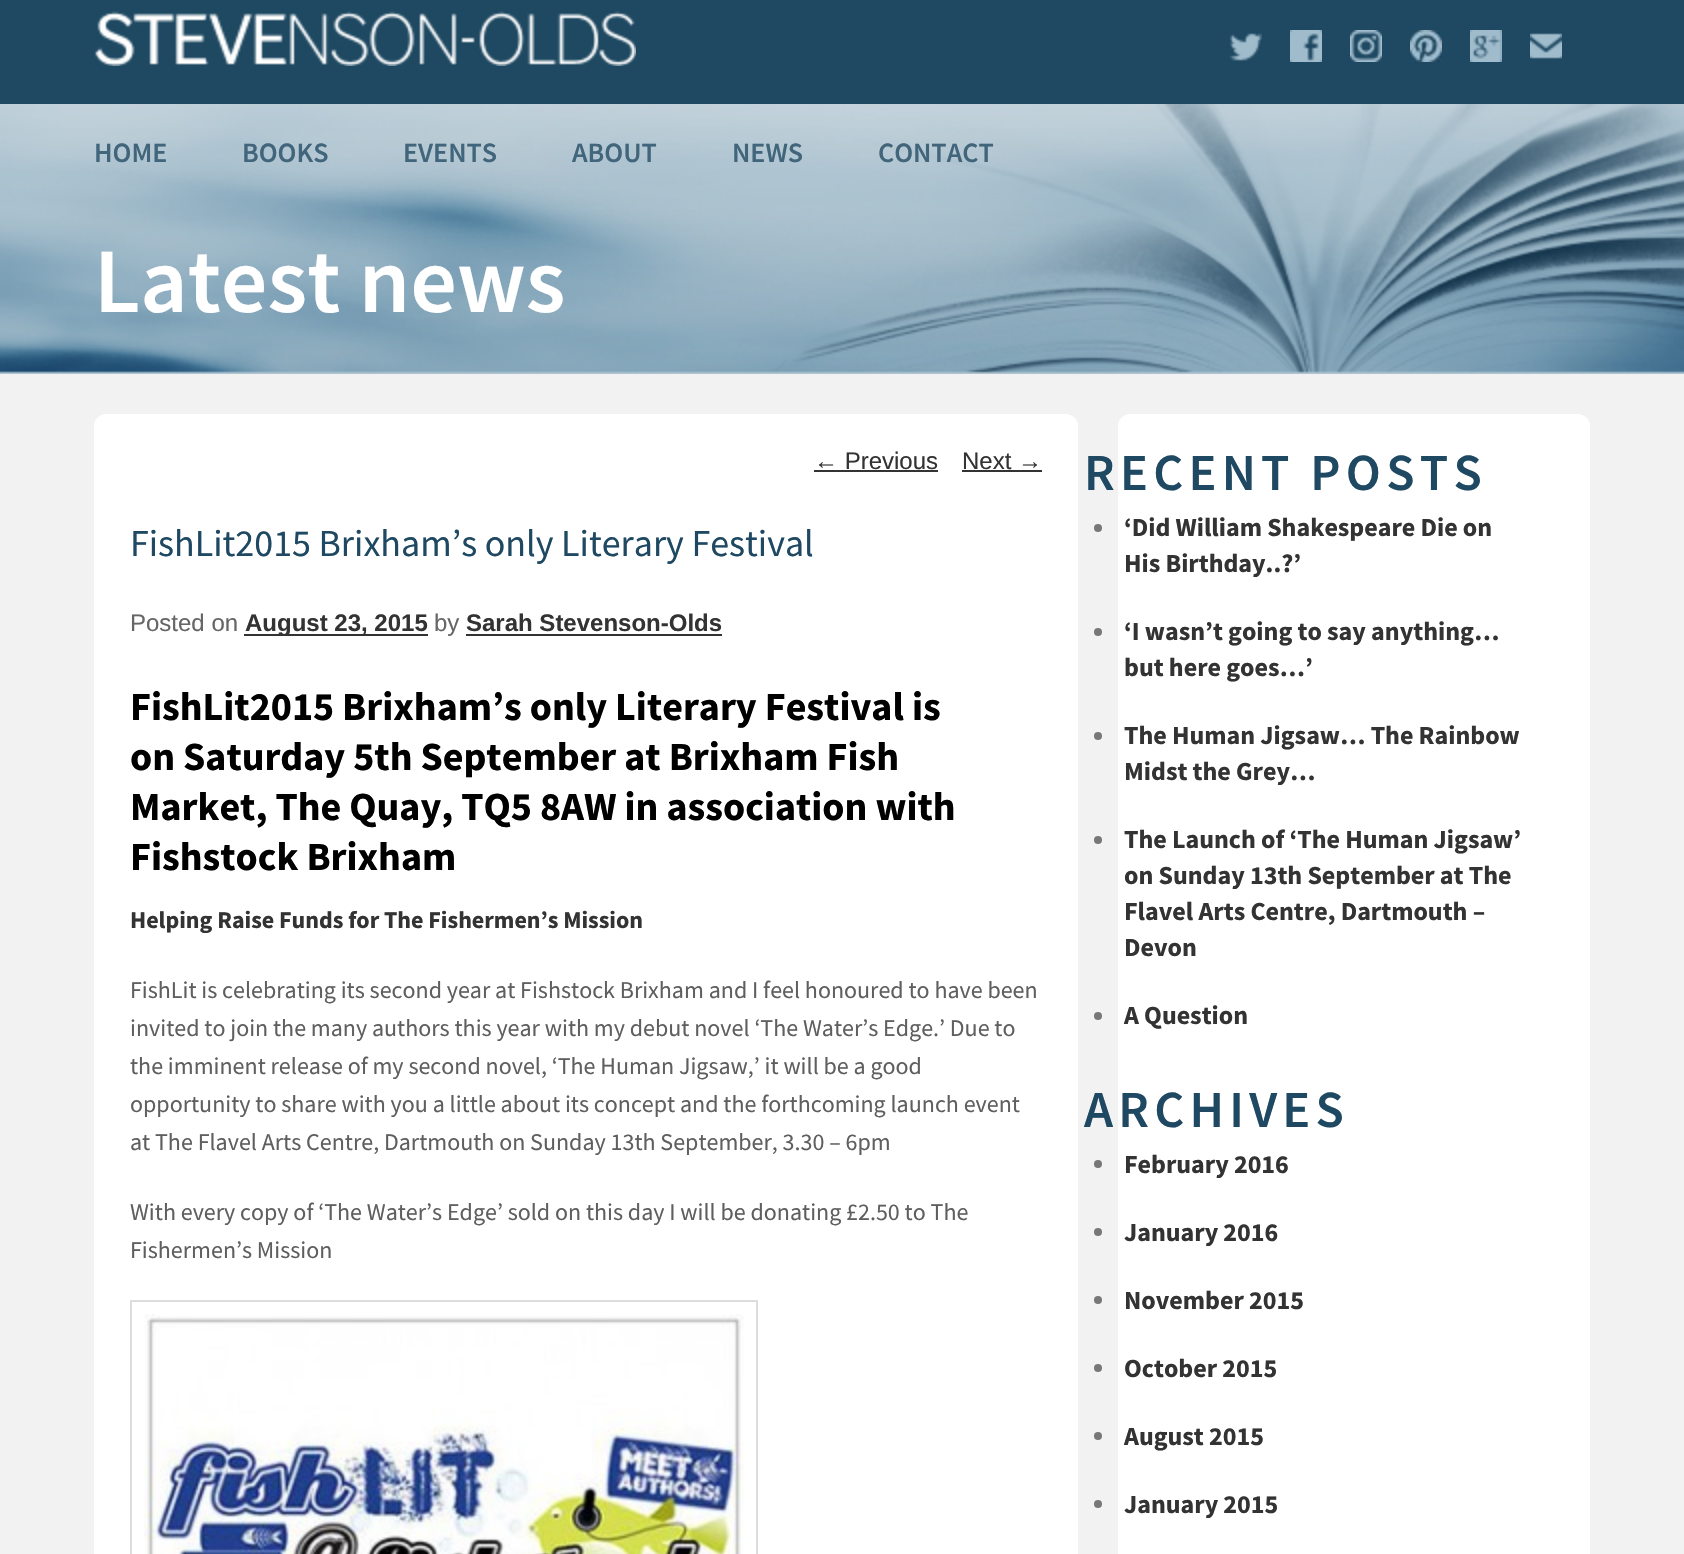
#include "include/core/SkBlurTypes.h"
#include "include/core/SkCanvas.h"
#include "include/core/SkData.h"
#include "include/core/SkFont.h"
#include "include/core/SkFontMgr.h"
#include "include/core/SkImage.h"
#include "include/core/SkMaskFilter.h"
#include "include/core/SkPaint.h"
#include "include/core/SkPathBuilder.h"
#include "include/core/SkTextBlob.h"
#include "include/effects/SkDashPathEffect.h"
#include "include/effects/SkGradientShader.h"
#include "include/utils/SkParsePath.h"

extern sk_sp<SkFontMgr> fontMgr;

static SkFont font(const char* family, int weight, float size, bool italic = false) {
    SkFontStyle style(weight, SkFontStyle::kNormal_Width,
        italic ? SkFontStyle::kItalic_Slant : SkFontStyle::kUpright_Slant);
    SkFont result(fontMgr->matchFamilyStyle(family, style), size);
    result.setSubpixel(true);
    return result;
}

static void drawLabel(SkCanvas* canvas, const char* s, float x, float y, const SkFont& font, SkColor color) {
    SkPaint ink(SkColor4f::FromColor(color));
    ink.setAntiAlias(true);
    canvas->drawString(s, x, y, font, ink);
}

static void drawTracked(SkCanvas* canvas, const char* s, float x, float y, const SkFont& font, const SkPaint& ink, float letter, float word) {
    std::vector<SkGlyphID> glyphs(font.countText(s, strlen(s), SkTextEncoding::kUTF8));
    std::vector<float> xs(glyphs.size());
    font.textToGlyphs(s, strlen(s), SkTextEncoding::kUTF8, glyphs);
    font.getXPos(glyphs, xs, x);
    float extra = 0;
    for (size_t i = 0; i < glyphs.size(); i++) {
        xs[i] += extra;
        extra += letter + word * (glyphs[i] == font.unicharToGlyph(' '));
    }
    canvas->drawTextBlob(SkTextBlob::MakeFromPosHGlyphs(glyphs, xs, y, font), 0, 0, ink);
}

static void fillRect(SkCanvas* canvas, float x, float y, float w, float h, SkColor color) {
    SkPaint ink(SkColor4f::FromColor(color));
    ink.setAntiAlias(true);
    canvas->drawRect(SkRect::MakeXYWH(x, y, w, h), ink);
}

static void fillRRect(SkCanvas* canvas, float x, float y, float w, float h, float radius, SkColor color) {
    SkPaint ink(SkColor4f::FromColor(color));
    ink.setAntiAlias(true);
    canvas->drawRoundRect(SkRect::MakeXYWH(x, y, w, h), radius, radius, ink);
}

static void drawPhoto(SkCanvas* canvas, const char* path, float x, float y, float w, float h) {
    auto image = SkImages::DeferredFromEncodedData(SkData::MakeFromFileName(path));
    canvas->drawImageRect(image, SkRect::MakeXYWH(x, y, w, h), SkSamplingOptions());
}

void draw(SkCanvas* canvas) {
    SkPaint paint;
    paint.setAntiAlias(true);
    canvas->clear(0xFFF2F2F2);
    fillRect(canvas, 0, 0, 1684, 104, 0xFF1F4962);
    drawPhoto(canvas, "assets/img1.png", 94, 11, 542, 55);
    drawPhoto(canvas, "assets/img2.png", 1230, 33, 32, 28);
    drawPhoto(canvas, "assets/img3.png", 1290, 30, 32, 32);
    drawPhoto(canvas, "assets/img4.png", 1350, 30, 32, 32);
    drawPhoto(canvas, "assets/img5.png", 1410, 30, 32, 32);
    drawPhoto(canvas, "assets/img6.png", 1470, 30, 32, 32);
    drawPhoto(canvas, "assets/img7.png", 1530, 33, 32, 26);
    drawPhoto(canvas, "assets/img8.png", 0, 373, 1684, 1);
    drawPhoto(canvas, "assets/img9.png", 0, 104, 1684, 269);
    SkFont font1 = font("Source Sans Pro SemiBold", 600, 28);
    drawLabel(canvas, "HOME", 94, 162, font1, 0xFF41657A);
    drawLabel(canvas, "BOOKS", 242, 162, font1, 0xFF41657A);
    drawLabel(canvas, "EVENTS", 403, 162, font1, 0xFF41657A);
    drawLabel(canvas, "ABOUT", 572, 162, font1, 0xFF41657A);
    drawLabel(canvas, "NEWS", 732, 162, font1, 0xFF41657A);
    drawLabel(canvas, "CONTACT", 878, 162, font1, 0xFF41657A);
    SkFont font2 = font("Source Sans Pro SemiBold", 600, 92);
    drawLabel(canvas, "Latest news", 94, 312, font2, 0xFFFFFFFF);
    fillRRect(canvas, 94, 414, 984, 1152, 12, 0xFFFFFFFF);
    SkFont font3 = font("Liberation Sans", 400, 24);
    drawLabel(canvas, "← Previous", 814, 469, font3, 0xFF333333);
    fillRect(canvas, 814, 470, 124, 2, 0xFF333333);
    drawLabel(canvas, "Next →", 962, 469, font3, 0xFF333333);
    fillRect(canvas, 962, 470, 80, 2, 0xFF333333);
    SkFont font4 = font("Source Sans Pro", 400, 38);
    drawLabel(canvas, "FishLit2015 Brixham’s only Literary Festival", 130, 556, font4, 0xFF1F4962);
    drawLabel(canvas, "Posted on", 130, 631, font3, 0xFF666666);
    fillRect(canvas, 244, 634, 184, 2, 0xFF333333);
    SkFont font5 = font("Liberation Sans", 700, 24);
    drawLabel(canvas, "August 23, 2015", 245, 631, font5, 0xFF333333);
    drawLabel(canvas, "by", 434, 631, font3, 0xFF666666);
    drawLabel(canvas, "Sarah Stevenson-Olds", 466, 631, font5, 0xFF333333);
    fillRect(canvas, 466, 634, 256, 2, 0xFF333333);
    SkFont font6 = font("Source Sans Pro", 700, 40);
    drawLabel(canvas, "FishLit2015 Brixham’s only Literary Festival is", 130, 720, font6, 0xFF000000);
    drawLabel(canvas, "on Saturday 5th September at Brixham Fish", 130, 770, font6, 0xFF000000);
    drawLabel(canvas, "Market, The Quay, TQ5 8AW in association with", 130, 820, font6, 0xFF000000);
    drawLabel(canvas, "Fishstock Brixham", 130, 870, font6, 0xFF000000);
    SkFont font7 = font("Source Sans Pro", 700, 24);
    drawLabel(canvas, "Helping Raise Funds for The Fishermen’s Mission", 130, 928, font7, 0xFF333333);
    SkFont font8 = font("Source Sans Pro", 400, 24);
    drawLabel(canvas, "FishLit is celebrating its second year at Fishstock Brixham and I feel honoured to have been", 130, 998, font8, 0xFF5F5F5F);
    drawLabel(canvas, "invited to join the many authors this year with my debut novel ‘The Water’s Edge.’ Due to", 130, 1036, font8, 0xFF5F5F5F);
    drawLabel(canvas, "the imminent release of my second novel, ‘The Human Jigsaw,’ it will be a good", 130, 1074, font8, 0xFF5F5F5F);
    drawLabel(canvas, "opportunity to share with you a little about its concept and the forthcoming launch event", 130, 1112, font8, 0xFF5F5F5F);
    drawLabel(canvas, "at The Flavel Arts Centre, Dartmouth on Sunday 13th September, 3.30 – 6pm", 130, 1150, font8, 0xFF5F5F5F);
    drawLabel(canvas, "With every copy of ‘The Water’s Edge’ sold on this day I will be donating £2.50 to The", 130, 1220, font8, 0xFF5F5F5F);
    drawLabel(canvas, "Fishermen’s Mission", 130, 1258, font8, 0xFF5F5F5F);
    paint.setStroke(true);
    paint.setStrokeWidth(2);
    paint.setColor(0xFFDDDDDD);
    canvas->drawRect(SkRect::MakeXYWH(131, 1301, 626, 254), paint);
    drawPhoto(canvas, "assets/img10.png", 144, 1314, 600, 240);
    fillRRect(canvas, 1118, 414, 472, 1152, 12, 0xFFFFFFFF);
    SkFont font9 = font("Source Sans Pro SemiBold", 600, 52);
    paint.setStroke(false);
    paint.setColor(0xFF1F4962);
    drawTracked(canvas, "RECENT POSTS", 1084, 490, font9, paint, 5.25f, 0);
    paint.setColor(0xFF777777);
    canvas->drawCircle(1098, 528, 4, paint);
    SkFont font10 = font("Source Sans Pro", 700, 26);
    drawLabel(canvas, "‘Did William Shakespeare Die on", 1124, 536, font10, 0xFF333333);
    drawLabel(canvas, "His Birthday..?’", 1124, 572, font10, 0xFF333333);
    canvas->drawCircle(1098, 632, 4, paint);
    drawLabel(canvas, "‘I wasn’t going to say anything…", 1124, 640, font10, 0xFF333333);
    drawLabel(canvas, "but here goes…’", 1124, 676, font10, 0xFF333333);
    canvas->drawCircle(1098, 736, 4, paint);
    drawLabel(canvas, "The Human Jigsaw… The Rainbow", 1124, 744, font10, 0xFF333333);
    drawLabel(canvas, "Midst the Grey…", 1124, 780, font10, 0xFF333333);
    canvas->drawCircle(1098, 840, 4, paint);
    drawLabel(canvas, "The Launch of ‘The Human Jigsaw’", 1124, 848, font10, 0xFF333333);
    drawLabel(canvas, "on Sunday 13th September at The", 1124, 884, font10, 0xFF333333);
    drawLabel(canvas, "Flavel Arts Centre, Dartmouth –", 1124, 920, font10, 0xFF333333);
    drawLabel(canvas, "Devon", 1124, 956, font10, 0xFF333333);
    canvas->drawCircle(1098, 1016, 4, paint);
    drawLabel(canvas, "A Question", 1124, 1024, font10, 0xFF333333);
    paint.setColor(0xFF1F4962);
    drawTracked(canvas, "ARCHIVES", 1084, 1127, font9, paint, 5.25f, 0);
    paint.setColor(0xFF777777);
    canvas->drawCircle(1098, 1164, 4, paint);
    drawLabel(canvas, "February 2016", 1124, 1173, font10, 0xFF333333);
    canvas->drawCircle(1098, 1232, 4, paint);
    drawLabel(canvas, "January 2016", 1124, 1241, font10, 0xFF333333);
    canvas->drawCircle(1098, 1300, 4, paint);
    drawLabel(canvas, "November 2015", 1124, 1309, font10, 0xFF333333);
    canvas->drawCircle(1098, 1368, 4, paint);
    drawLabel(canvas, "October 2015", 1124, 1377, font10, 0xFF333333);
    canvas->drawCircle(1098, 1436, 4, paint);
    drawLabel(canvas, "August 2015", 1124, 1445, font10, 0xFF333333);
    canvas->drawCircle(1098, 1504, 4, paint);
    drawLabel(canvas, "January 2015", 1124, 1513, font10, 0xFF333333);
}
